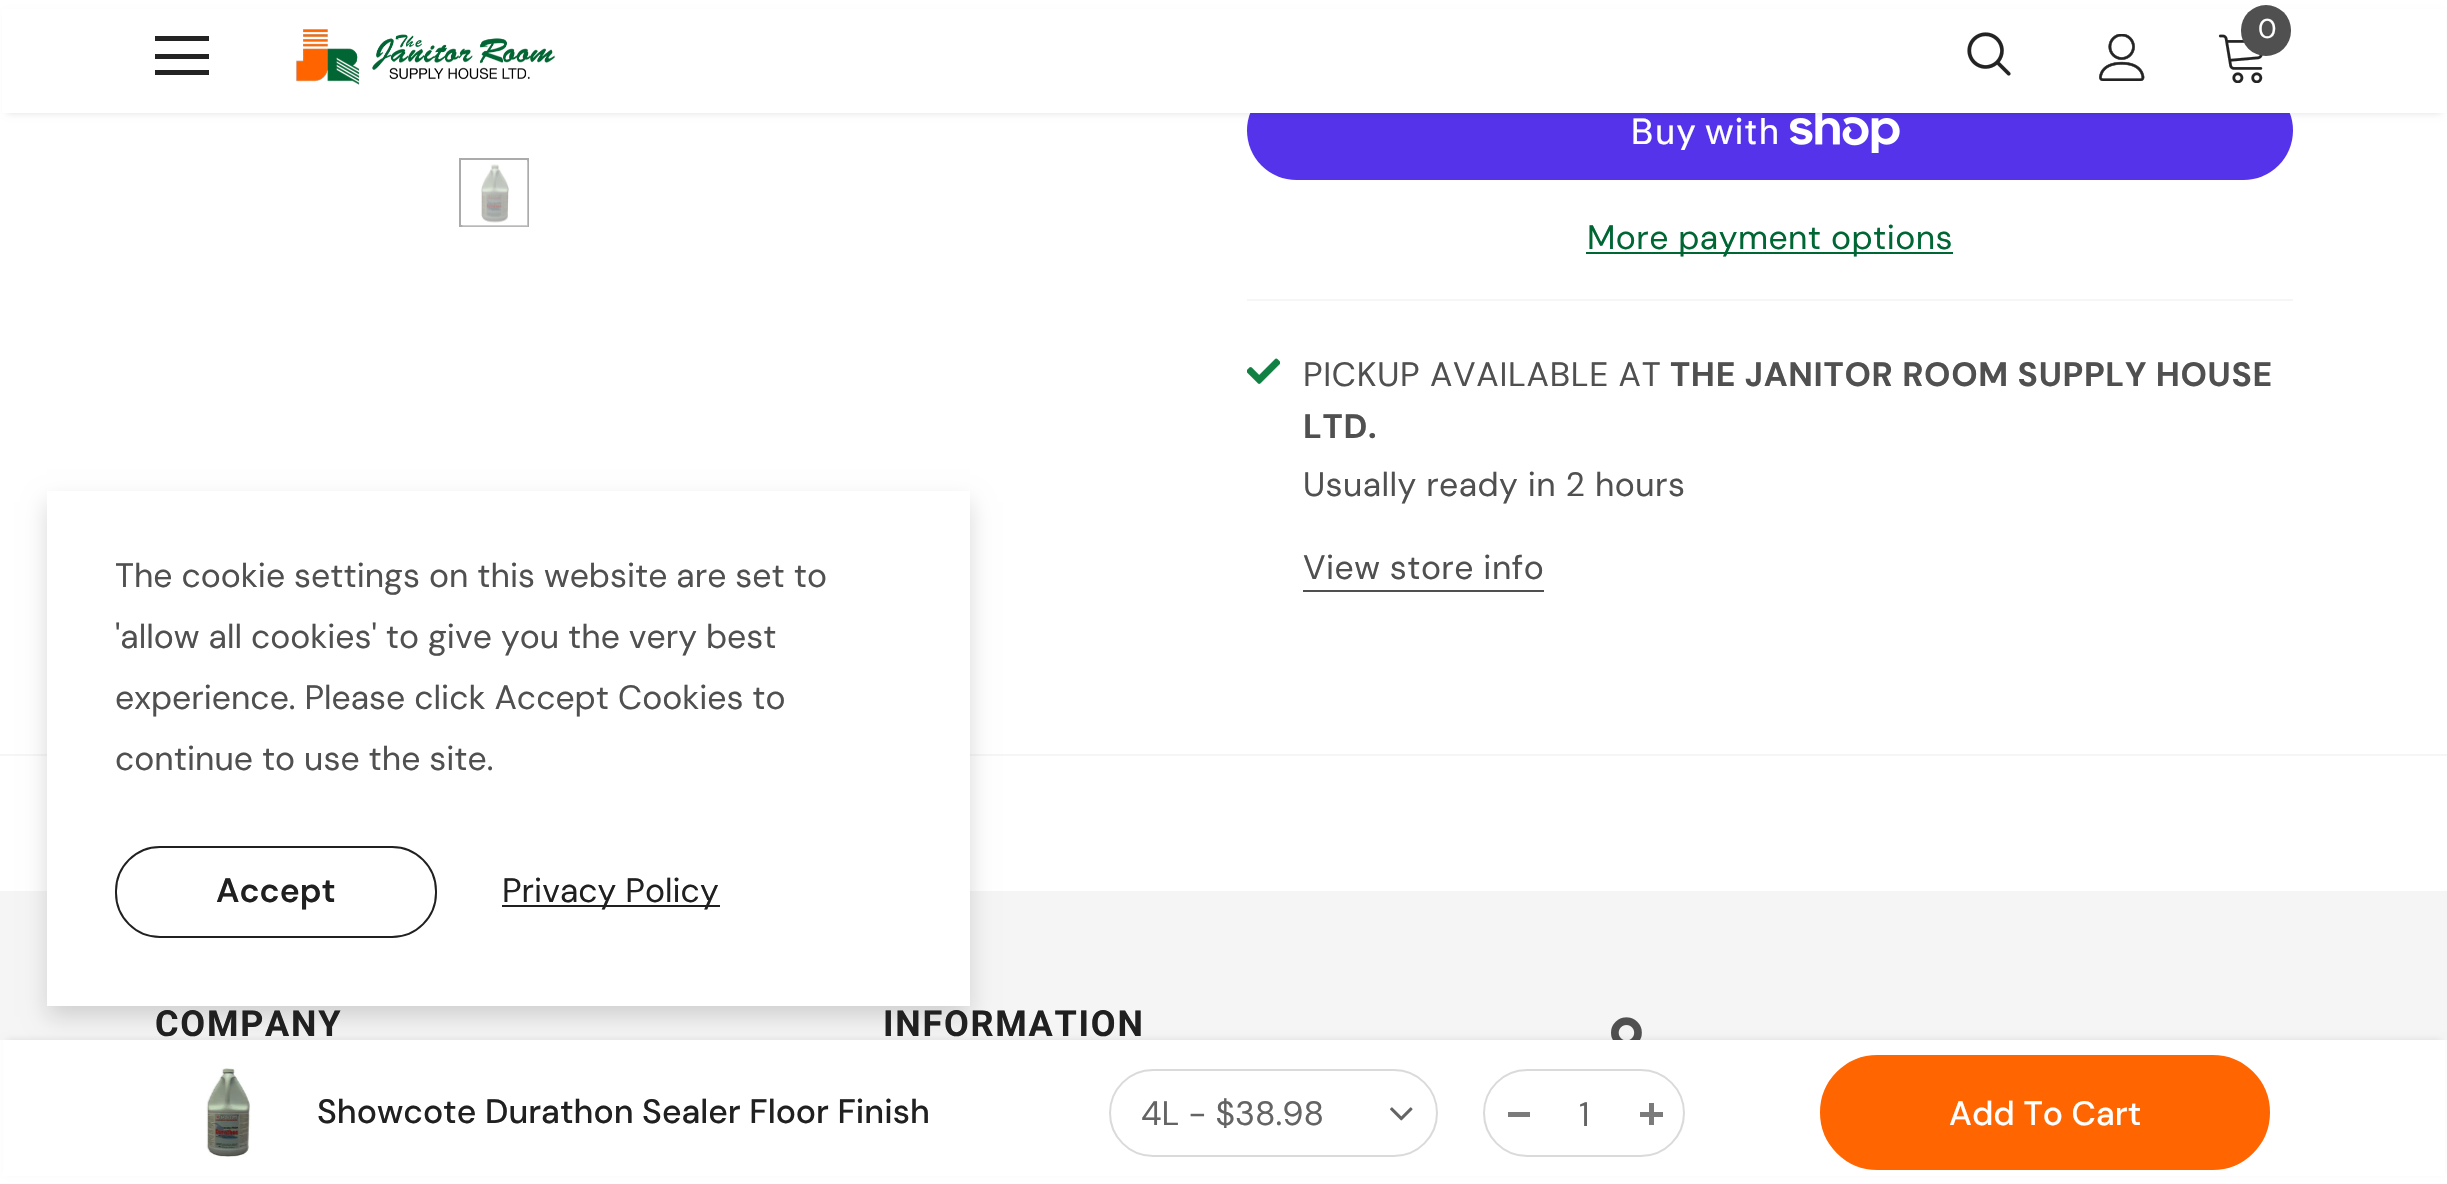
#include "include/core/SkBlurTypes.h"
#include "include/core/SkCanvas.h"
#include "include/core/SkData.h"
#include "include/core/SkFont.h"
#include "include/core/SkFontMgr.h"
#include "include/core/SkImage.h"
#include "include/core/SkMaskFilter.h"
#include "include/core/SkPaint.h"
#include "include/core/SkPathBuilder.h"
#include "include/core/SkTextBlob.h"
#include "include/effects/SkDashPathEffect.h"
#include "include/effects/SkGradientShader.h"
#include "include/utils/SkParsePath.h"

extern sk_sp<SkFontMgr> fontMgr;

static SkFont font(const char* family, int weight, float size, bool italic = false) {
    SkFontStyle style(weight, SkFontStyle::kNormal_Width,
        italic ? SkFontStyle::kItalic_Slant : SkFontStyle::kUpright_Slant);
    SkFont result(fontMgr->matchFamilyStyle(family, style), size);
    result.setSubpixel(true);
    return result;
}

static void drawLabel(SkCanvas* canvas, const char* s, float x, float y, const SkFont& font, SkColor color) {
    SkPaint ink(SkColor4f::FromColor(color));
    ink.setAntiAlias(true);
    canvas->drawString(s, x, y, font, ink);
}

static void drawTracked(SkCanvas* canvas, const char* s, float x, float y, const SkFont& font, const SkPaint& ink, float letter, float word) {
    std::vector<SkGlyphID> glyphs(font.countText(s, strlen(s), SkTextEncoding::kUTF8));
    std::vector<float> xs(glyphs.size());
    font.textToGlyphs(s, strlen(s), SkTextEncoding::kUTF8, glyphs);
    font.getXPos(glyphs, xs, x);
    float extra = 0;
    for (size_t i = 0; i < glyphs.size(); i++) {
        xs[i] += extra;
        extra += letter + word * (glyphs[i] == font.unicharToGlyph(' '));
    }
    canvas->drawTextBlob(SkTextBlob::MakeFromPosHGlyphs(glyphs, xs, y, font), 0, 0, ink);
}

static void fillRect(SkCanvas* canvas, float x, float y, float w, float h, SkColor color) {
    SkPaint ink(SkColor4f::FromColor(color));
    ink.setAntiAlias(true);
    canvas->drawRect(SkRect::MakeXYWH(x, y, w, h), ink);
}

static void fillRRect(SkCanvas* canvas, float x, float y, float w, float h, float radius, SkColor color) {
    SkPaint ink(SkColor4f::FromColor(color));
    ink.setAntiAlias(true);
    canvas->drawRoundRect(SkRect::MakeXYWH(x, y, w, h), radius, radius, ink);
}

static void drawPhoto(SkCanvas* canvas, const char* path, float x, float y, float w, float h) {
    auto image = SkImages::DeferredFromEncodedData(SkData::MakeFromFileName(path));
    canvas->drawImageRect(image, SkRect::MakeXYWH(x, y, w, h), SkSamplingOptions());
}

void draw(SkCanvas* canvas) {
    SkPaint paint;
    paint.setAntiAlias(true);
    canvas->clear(0xFFFFFFFF);
    fillRRect(canvas, 1247, 81, 1046, 99, 49.5f, 0xFF5433EB);
    drawPhoto(canvas, "assets/img6.png", 1790, 113, 110, 40);
    paint.setColor(0x1F000000);
    paint.setMaskFilter(SkMaskFilter::MakeBlur(kNormal_SkBlurStyle, 3.5f));
    canvas->drawRect(SkRect::MakeXYWH(7, 14, 2434, 99), paint);
    paint.setMaskFilter(nullptr);
    fillRect(canvas, 2, 9, 2444, 104, 0xFFFFFFFF);
    fillRect(canvas, 155, 36, 54, 5, 0xFF232323);
    fillRect(canvas, 155, 54, 54, 5, 0xFF232323);
    fillRect(canvas, 155, 70, 54, 5, 0xFF232323);
    drawPhoto(canvas, "assets/img1.png", 296, 29, 259, 56);
    drawPhoto(canvas, "assets/img2.png", 2218, 34, 45, 49);
    fillRRect(canvas, 2241, 5, 50, 51, 25, 0xFF505050);
    SkFont font1 = font("DM Sans", 400, 27);
    drawLabel(canvas, "0", 2258, 38, font1, 0xFFFFFFFF);
    drawPhoto(canvas, "assets/img3.png", 1967, 32, 44, 44);
    drawPhoto(canvas, "assets/img4.png", 2099, 34, 46, 47);
    paint.setStroke(true);
    paint.setStrokeWidth(2);
    paint.setColor(0xFFABABAB);
    canvas->drawRect(SkRect::MakeXYWH(460, 159, 68, 67), paint);
    drawPhoto(canvas, "assets/img5.png", 462, 160, 66, 67);
    SkFont font2 = font("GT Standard", 400, 36);
    paint.setStroke(false);
    paint.setColor(0xFFFFFFFF);
    drawTracked(canvas, "Buy with", 1630, 144, font2, paint, 0.45f, 0);
    fillRect(canvas, 1586, 252, 367, 2, 0xFF006634);
    SkFont font3 = font("DM Sans", 400, 33.75f);
    paint.setColor(0xFF006634);
    drawTracked(canvas, "More payment options", 1587, 249, font3, paint, 0.45f, 0);
    fillRect(canvas, 1247, 299, 1046, 2, 0xFFF6F6F6);
    drawPhoto(canvas, "assets/img7.png", 1247, 358, 33, 26);
    paint.setColor(0xFF505050);
    drawTracked(canvas, "PICKUP AVAILABLE AT", 1303, 386, font3, paint, 0.7f, 0);
    SkFont font4 = font("DM Sans", 700, 33.75f);
    drawTracked(canvas, "THE JANITOR ROOM SUPPLY HOUSE", 1670, 386, font4, paint, 0.7f, 0);
    drawTracked(canvas, "LTD.", 1303, 438, font4, paint, 0.7f, 0);
    drawTracked(canvas, "Usually ready in 2 hours", 1303, 496, font3, paint, 0.45f, 0);
    fillRect(canvas, 1303, 590, 241, 2, 0xFF505050);
    drawTracked(canvas, "View store info", 1303, 579, font3, paint, 0.45f, 0);
    fillRect(canvas, 0, 754, 47, 2, 0xFFF6F6F6);
    fillRect(canvas, 970, 754, 1477, 2, 0xFFF6F6F6);
    fillRect(canvas, 0, 891, 2447, 149, 0xFFF5F5F5);
    paint.setColor(0x26000000);
    paint.setMaskFilter(SkMaskFilter::MakeBlur(kNormal_SkBlurStyle, 11));
    canvas->drawRect(SkRect::MakeXYWH(47, 502, 923, 515), paint);
    paint.setMaskFilter(nullptr);
    fillRect(canvas, 47, 491, 923, 515, 0xFFFFFFFF);
    drawLabel(canvas, "The cookie settings on this website are set to", 115, 587, font3, 0xFF505050);
    drawLabel(canvas, "'allow all cookies' to give you the very best", 115, 648, font3, 0xFF505050);
    drawLabel(canvas, "experience. Please click Accept Cookies to", 115, 709, font3, 0xFF505050);
    drawLabel(canvas, "continue to use the site.", 115, 770, font3, 0xFF505050);
    paint.setStroke(true);
    paint.setColor(0xFF202020);
    canvas->drawRoundRect(SkRect::MakeXYWH(116, 847, 320, 90), 44, 44, paint);
    SkFont font5 = font("DM Sans", 600, 33.75f);
    drawLabel(canvas, "Accept", 216, 902, font5, 0xFF202020);
    fillRect(canvas, 502, 905, 218, 2, 0xFF202020);
    drawLabel(canvas, "Privacy Policy", 502, 902, font3, 0xFF202020);
    drawPhoto(canvas, "assets/img10.png", 1611, 1017, 31, 23);
    paint.setStroke(false);
    paint.setColor(0x1A000000);
    paint.setMaskFilter(SkMaskFilter::MakeBlur(kNormal_SkBlurStyle, 3.5f));
    canvas->drawRect(SkRect::MakeXYWH(7, 1040, 2434, 132), paint);
    paint.setMaskFilter(nullptr);
    fillRect(canvas, 3, 1040, 2442, 136, 0xFFFFFFFF);
    drawPhoto(canvas, "assets/img8.png", 206, 1068, 45, 89);
    SkFont font6 = font("DM Sans", 500, 33.75f);
    drawLabel(canvas, "Showcote Durathon Sealer Floor Finish", 317, 1123, font6, 0xFF202020);
    paint.setStroke(true);
    paint.setColor(0xFFDADADA);
    canvas->drawRoundRect(SkRect::MakeXYWH(1110, 1070, 327, 86), 43, 43, paint);
    drawLabel(canvas, "4L - $38.98", 1141, 1125, font3, 0xFF646464);
    drawPhoto(canvas, "assets/img9.png", 1390, 1107, 23, 14);
    canvas->drawRoundRect(SkRect::MakeXYWH(1484, 1070, 200, 86), 43, 43, paint);
    fillRect(canvas, 1508, 1112, 22, 5, 0xFF7B7B7B);
    drawLabel(canvas, "1", 1579, 1126, font3, 0xFF646464);
    fillRect(canvas, 1640, 1112, 23, 5, 0xFF7B7B7B);
    fillRect(canvas, 1649, 1103, 5, 22, 0xFF7B7B7B);
    paint.setStroke(false);
    paint.setColor(0xFFFF6500);
    canvas->drawRoundRect(SkRect::MakeXYWH(1821, 1056, 448, 113), 56.5f, 56.5f, paint);
    paint.setStroke(true);
    canvas->drawRoundRect(SkRect::MakeXYWH(1821, 1056, 448, 113), 56.5f, 56.5f, paint);
    drawLabel(canvas, "Add To Cart", 1949, 1125, font6, 0xFFFFFFFF);
    SkFont font7 = font("Roboto", 700, 36);
    paint.setStroke(false);
    paint.setColor(0xFF202020);
    drawTracked(canvas, "COMPANY", 155, 1036, font7, paint, 1.75f, 0);
    drawTracked(canvas, "INFORMATION", 883, 1036, font7, paint, 1.75f, 0);
}
